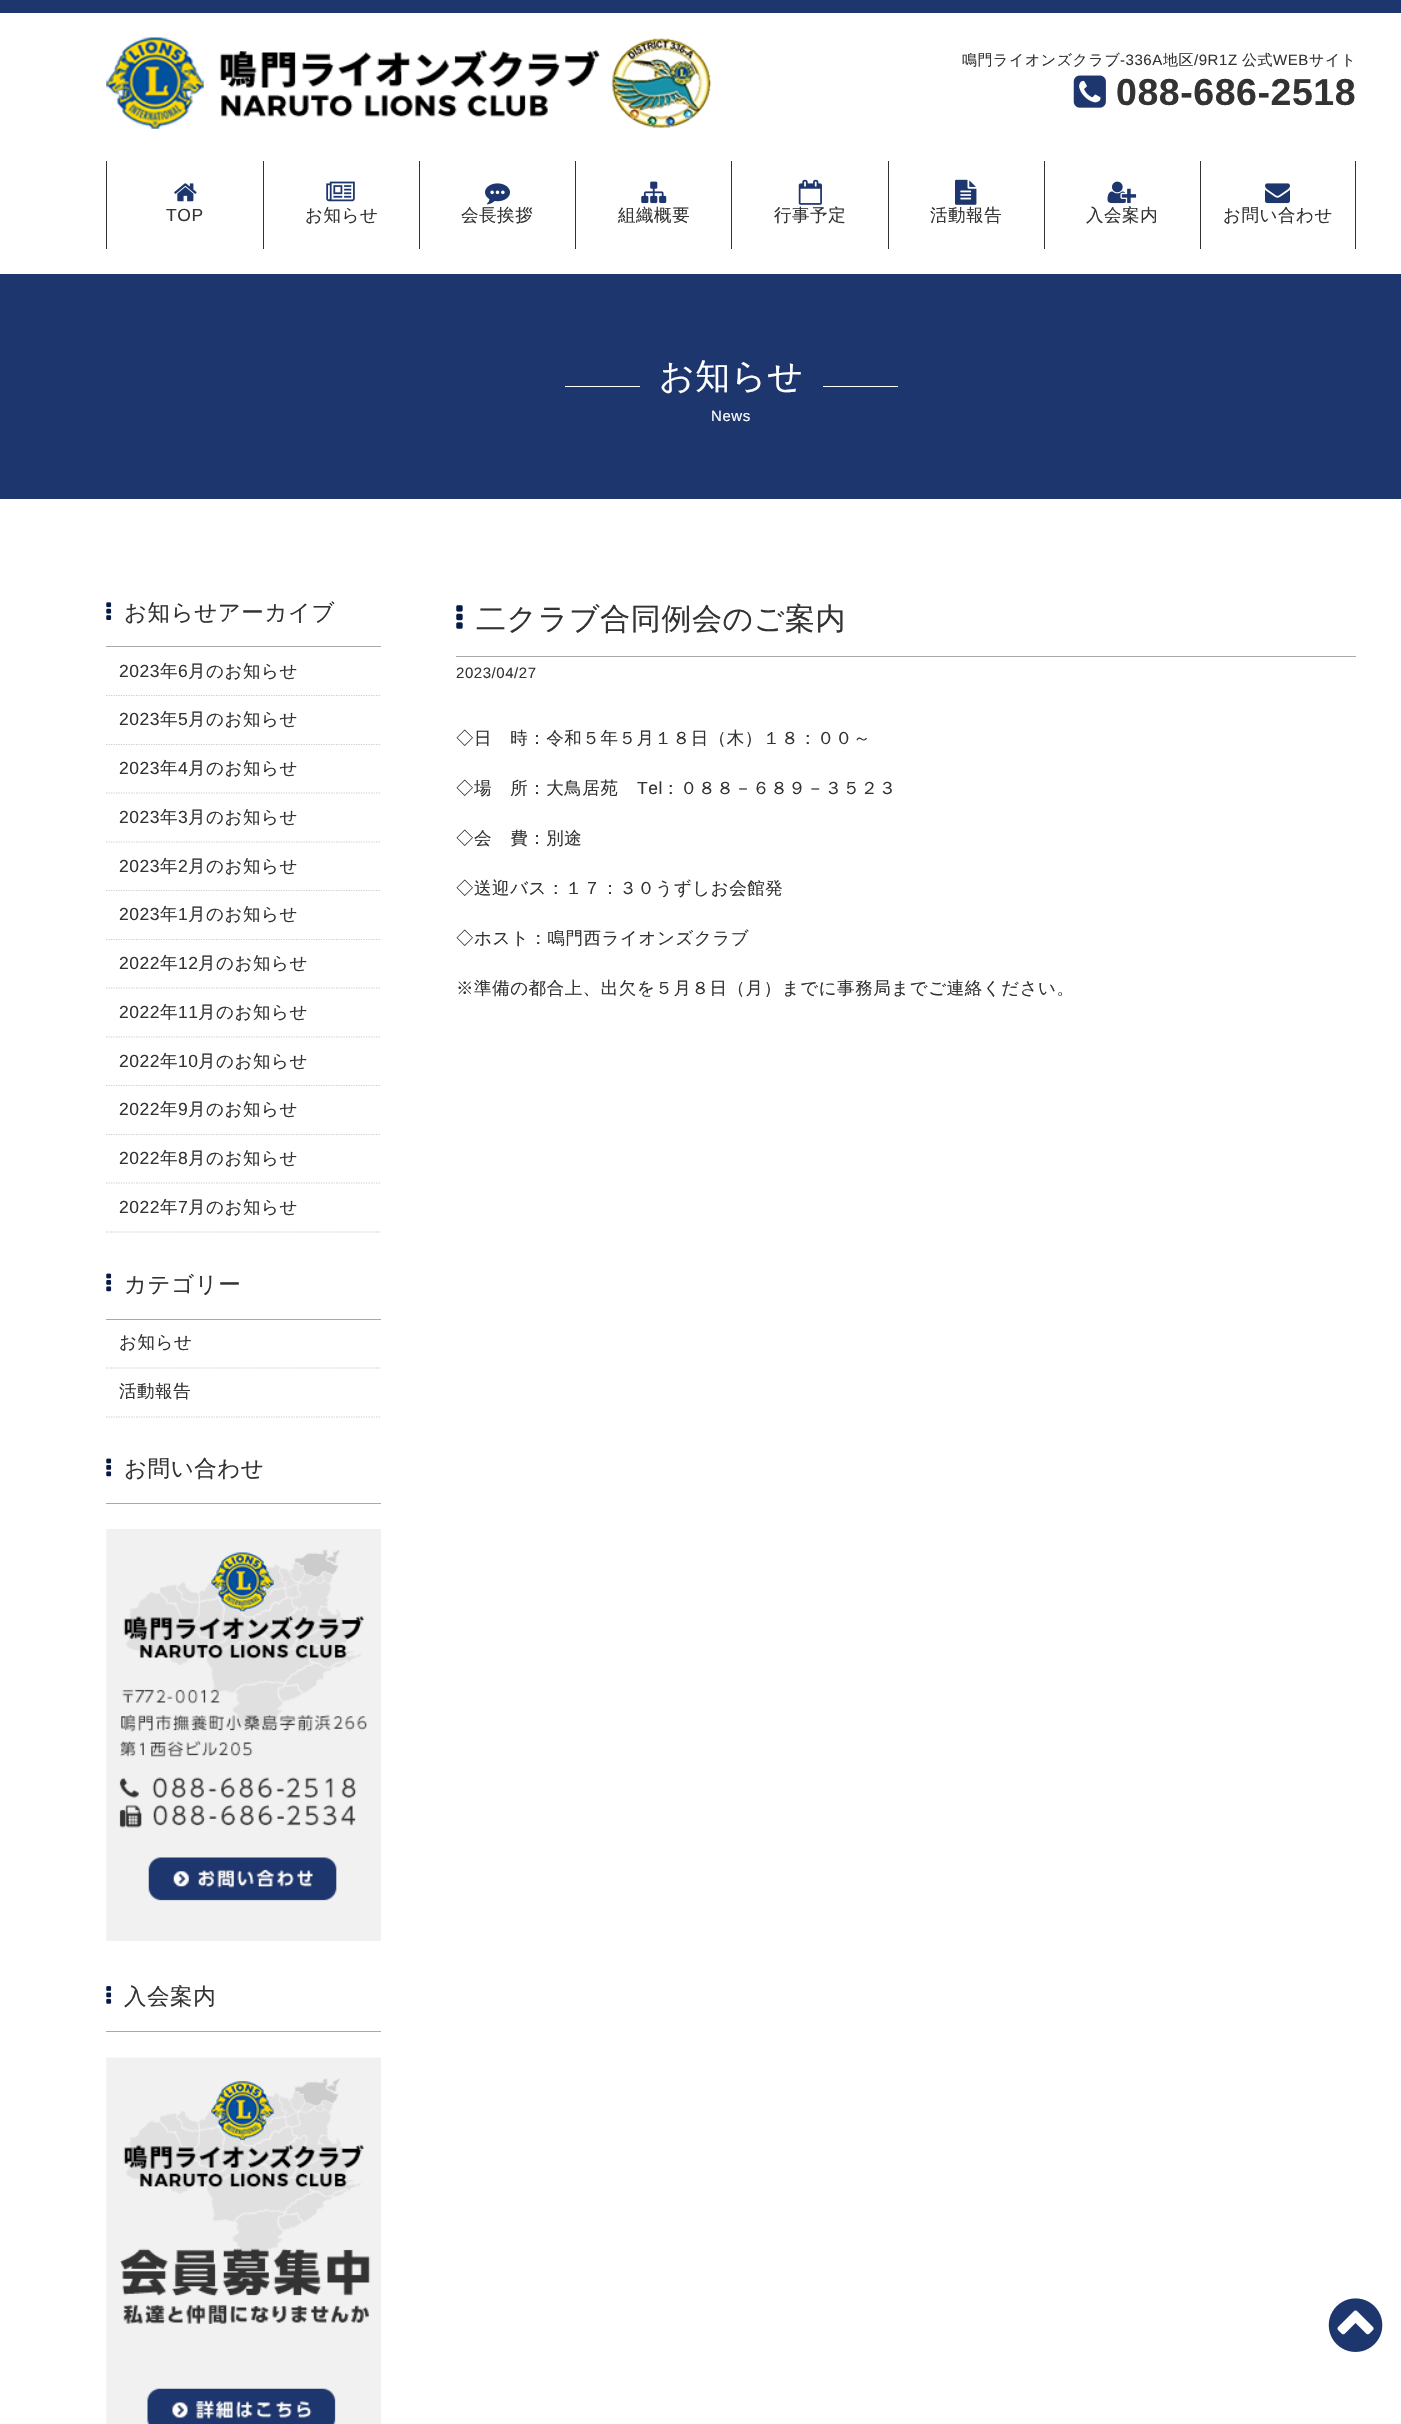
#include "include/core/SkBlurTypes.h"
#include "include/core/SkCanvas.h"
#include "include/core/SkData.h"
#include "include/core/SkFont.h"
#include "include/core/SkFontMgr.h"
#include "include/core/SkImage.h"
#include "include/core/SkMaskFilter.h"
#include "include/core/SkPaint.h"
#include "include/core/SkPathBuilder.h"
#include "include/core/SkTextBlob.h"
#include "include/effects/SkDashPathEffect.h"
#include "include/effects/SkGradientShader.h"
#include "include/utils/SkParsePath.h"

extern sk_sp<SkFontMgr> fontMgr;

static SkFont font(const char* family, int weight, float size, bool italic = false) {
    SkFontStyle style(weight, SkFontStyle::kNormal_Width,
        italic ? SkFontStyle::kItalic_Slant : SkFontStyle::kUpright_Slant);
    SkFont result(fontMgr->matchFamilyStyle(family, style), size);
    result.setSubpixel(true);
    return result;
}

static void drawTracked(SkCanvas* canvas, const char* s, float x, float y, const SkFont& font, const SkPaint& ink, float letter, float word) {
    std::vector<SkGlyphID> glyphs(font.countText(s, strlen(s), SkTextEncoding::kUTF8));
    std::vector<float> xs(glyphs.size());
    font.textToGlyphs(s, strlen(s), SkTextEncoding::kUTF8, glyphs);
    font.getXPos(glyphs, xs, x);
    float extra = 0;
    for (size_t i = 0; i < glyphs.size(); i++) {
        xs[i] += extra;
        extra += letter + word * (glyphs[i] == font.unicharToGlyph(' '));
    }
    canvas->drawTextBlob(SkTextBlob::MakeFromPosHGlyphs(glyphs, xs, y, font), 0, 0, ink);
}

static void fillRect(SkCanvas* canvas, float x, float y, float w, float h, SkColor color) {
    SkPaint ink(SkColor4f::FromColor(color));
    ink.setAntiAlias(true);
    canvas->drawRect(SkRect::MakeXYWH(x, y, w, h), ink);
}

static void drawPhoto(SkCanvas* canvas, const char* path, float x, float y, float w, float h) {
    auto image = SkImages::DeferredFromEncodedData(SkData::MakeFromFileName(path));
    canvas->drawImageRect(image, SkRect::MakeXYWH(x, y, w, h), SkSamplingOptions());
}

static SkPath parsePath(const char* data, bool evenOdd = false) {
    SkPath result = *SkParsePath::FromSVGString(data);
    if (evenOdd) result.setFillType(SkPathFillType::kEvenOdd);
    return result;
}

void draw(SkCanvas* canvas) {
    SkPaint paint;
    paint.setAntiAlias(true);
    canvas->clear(0xFFFFFFFF);
    fillRect(canvas, 0, 0, 1401, 13, 0xFF1E366E);
    drawPhoto(canvas, "assets/img1.png", 106, 37, 606, 92);
    SkFont font1 = font("WenQuanYi Zen Hei", 500, 15);
    paint.setColor(0xFF333333);
    drawTracked(canvas, "鳴門ライオンズクラブ", 962, 65, font1, paint, 0.55f, 0);
    SkFont font2 = font("Liberation Sans", 400, 15);
    drawTracked(canvas, "-336A", 1120, 65, font2, paint, 0.55f, 0);
    drawTracked(canvas, "地区", 1163, 65, font1, paint, 0.55f, 0);
    drawTracked(canvas, "/9R1Z", 1194, 65, font2, paint, 0.55f, 0);
    drawTracked(canvas, "公式", 1242, 65, font1, paint, 0.55f, 0);
    drawTracked(canvas, "WEB", 1273, 65, font2, paint, 0.55f, 0);
    drawTracked(canvas, "サイト", 1309, 65, font1, paint, 0.55f, 0);
    drawPhoto(canvas, "assets/img2.png", 1073, 75, 33, 33);
    SkFont font3 = font("Liberation Sans", 700, 37.5f);
    drawTracked(canvas, "088-686-2518", 1116, 105, font3, paint, 0.55f, 0);
    fillRect(canvas, 106, 161, 1, 88, 0xFF333333);
    drawPhoto(canvas, "assets/img3.png", 174, 183, 23, 19);
    SkFont font4 = font("Liberation Sans", 400, 17.5f);
    drawTracked(canvas, "TOP", 166, 221, font4, paint, 0.55f, 0);
    fillRect(canvas, 263, 161, 1, 88, 0xFF333333);
    drawPhoto(canvas, "assets/img4.png", 326, 181, 29, 21);
    SkFont font5 = font("WenQuanYi Zen Hei", 500, 17.5f);
    drawTracked(canvas, "お知らせ", 305, 221, font5, paint, 0.55f, 0);
    fillRect(canvas, 419, 161, 1, 88, 0xFF333333);
    drawPhoto(canvas, "assets/img5.png", 485, 183, 25, 22);
    drawTracked(canvas, "会長挨拶", 461, 221, font5, paint, 0.55f, 0);
    fillRect(canvas, 575, 161, 1, 88, 0xFF333333);
    drawPhoto(canvas, "assets/img6.png", 641, 181, 26, 23);
    drawTracked(canvas, "組織概要", 618, 221, font5, paint, 0.55f, 0);
    fillRect(canvas, 731, 161, 1, 88, 0xFF333333);
    drawPhoto(canvas, "assets/img7.png", 798, 179, 24, 26);
    drawTracked(canvas, "行事予定", 774, 221, font5, paint, 0.55f, 0);
    fillRect(canvas, 888, 161, 1, 88, 0xFF333333);
    drawPhoto(canvas, "assets/img8.png", 955, 179, 22, 26);
    drawTracked(canvas, "活動報告", 930, 221, font5, paint, 0.55f, 0);
    fillRect(canvas, 1044, 161, 1, 88, 0xFF333333);
    drawPhoto(canvas, "assets/img9.png", 1107, 181, 30, 23);
    drawTracked(canvas, "入会案内", 1086, 221, font5, paint, 0.55f, 0);
    fillRect(canvas, 1355, 161, 1, 88, 0xFF333333);
    fillRect(canvas, 1200, 161, 1, 88, 0xFF333333);
    drawPhoto(canvas, "assets/img10.png", 1265, 183, 25, 21);
    drawTracked(canvas, "お問い合わせ", 1223, 221, font5, paint, 0.55f, 0);
    fillRect(canvas, 0, 274, 1401, 225, 0xFF1E366E);
    fillRect(canvas, 565, 386, 75, 1, 0xFFFFFFFF);
    SkFont font6 = font("WenQuanYi Zen Hei", 500, 35);
    paint.setColor(0xFFFFFFFF);
    drawTracked(canvas, "お知らせ", 659, 388, font6, paint, 0.55f, 0);
    fillRect(canvas, 823, 386, 75, 1, 0xFFFFFFFF);
    drawTracked(canvas, "News", 711, 421, font2, paint, 0.55f, 0);
    fillRect(canvas, 106, 646, 275, 1, 0xFFAAAAAA);
    drawPhoto(canvas, "assets/img11.png", 106, 602, 6, 18);
    SkFont font7 = font("WenQuanYi Zen Hei", 500, 22.5f);
    paint.setColor(0xFF333333);
    drawTracked(canvas, "お知らせアーカイブ", 124, 620, font7, paint, 0.55f, 0);
    paint.setStroke(true);
    paint.setStrokeWidth(1.2f);
    paint.setColor(0xFFCCCCCC);
    paint.setPathEffect(SkDashPathEffect::Make({{1.25f, 1.25f}}, 0));
    canvas->drawPath(parsePath("M106 695.5H381"), paint);
    paint.setPathEffect(nullptr);
    paint.setStroke(false);
    paint.setColor(0xFF333333);
    drawTracked(canvas, "2023", 119, 677, font4, paint, 0.55f, 0);
    drawTracked(canvas, "年", 160, 677, font5, paint, 0.55f, 0);
    drawTracked(canvas, "6", 178, 677, font4, paint, 0.55f, 0);
    drawTracked(canvas, "月のお知らせ", 188, 677, font5, paint, 0.55f, 0);
    paint.setStroke(true);
    paint.setColor(0xFFCCCCCC);
    paint.setPathEffect(SkDashPathEffect::Make({{1.25f, 1.25f}}, 0));
    canvas->drawPath(parsePath("M106 744.5H381"), paint);
    paint.setPathEffect(nullptr);
    paint.setStroke(false);
    paint.setColor(0xFF333333);
    drawTracked(canvas, "2023", 119, 725, font4, paint, 0.55f, 0);
    drawTracked(canvas, "年", 160, 725, font5, paint, 0.55f, 0);
    drawTracked(canvas, "5", 178, 725, font4, paint, 0.55f, 0);
    drawTracked(canvas, "月のお知らせ", 188, 725, font5, paint, 0.55f, 0);
    paint.setStroke(true);
    paint.setColor(0xFFCCCCCC);
    paint.setPathEffect(SkDashPathEffect::Make({{1.25f, 1.25f}}, 0));
    canvas->drawPath(parsePath("M106 793H381"), paint);
    paint.setPathEffect(nullptr);
    paint.setStroke(false);
    paint.setColor(0xFF333333);
    drawTracked(canvas, "2023", 119, 774, font4, paint, 0.55f, 0);
    drawTracked(canvas, "年", 160, 774, font5, paint, 0.55f, 0);
    drawTracked(canvas, "4", 178, 774, font4, paint, 0.55f, 0);
    drawTracked(canvas, "月のお知らせ", 188, 774, font5, paint, 0.55f, 0);
    paint.setStroke(true);
    paint.setColor(0xFFCCCCCC);
    paint.setPathEffect(SkDashPathEffect::Make({{1.25f, 1.25f}}, 0));
    canvas->drawPath(parsePath("M106 842H381"), paint);
    paint.setPathEffect(nullptr);
    paint.setStroke(false);
    paint.setColor(0xFF333333);
    drawTracked(canvas, "2023", 119, 823, font4, paint, 0.55f, 0);
    drawTracked(canvas, "年", 160, 823, font5, paint, 0.55f, 0);
    drawTracked(canvas, "3", 178, 823, font4, paint, 0.55f, 0);
    drawTracked(canvas, "月のお知らせ", 188, 823, font5, paint, 0.55f, 0);
    paint.setStroke(true);
    paint.setColor(0xFFCCCCCC);
    paint.setPathEffect(SkDashPathEffect::Make({{1.25f, 1.25f}}, 0));
    canvas->drawPath(parsePath("M106 890.5H381"), paint);
    paint.setPathEffect(nullptr);
    paint.setStroke(false);
    paint.setColor(0xFF333333);
    drawTracked(canvas, "2023", 119, 872, font4, paint, 0.55f, 0);
    drawTracked(canvas, "年", 160, 872, font5, paint, 0.55f, 0);
    drawTracked(canvas, "2", 178, 872, font4, paint, 0.55f, 0);
    drawTracked(canvas, "月のお知らせ", 188, 872, font5, paint, 0.55f, 0);
    paint.setStroke(true);
    paint.setColor(0xFFCCCCCC);
    paint.setPathEffect(SkDashPathEffect::Make({{1.25f, 1.25f}}, 0));
    canvas->drawPath(parsePath("M106 939.5H381"), paint);
    paint.setPathEffect(nullptr);
    paint.setStroke(false);
    paint.setColor(0xFF333333);
    drawTracked(canvas, "2023", 119, 920, font4, paint, 0.55f, 0);
    drawTracked(canvas, "年", 160, 920, font5, paint, 0.55f, 0);
    drawTracked(canvas, "1", 178, 920, font4, paint, 0.55f, 0);
    drawTracked(canvas, "月のお知らせ", 188, 920, font5, paint, 0.55f, 0);
    paint.setStroke(true);
    paint.setColor(0xFFCCCCCC);
    paint.setPathEffect(SkDashPathEffect::Make({{1.25f, 1.25f}}, 0));
    canvas->drawPath(parsePath("M106 988H381"), paint);
    paint.setPathEffect(nullptr);
    paint.setStroke(false);
    paint.setColor(0xFF333333);
    drawTracked(canvas, "2022", 119, 969, font4, paint, 0.55f, 0);
    drawTracked(canvas, "年", 160, 969, font5, paint, 0.55f, 0);
    drawTracked(canvas, "12", 178, 969, font4, paint, 0.55f, 0);
    drawTracked(canvas, "月のお知らせ", 198, 969, font5, paint, 0.55f, 0);
    paint.setStroke(true);
    paint.setColor(0xFFCCCCCC);
    paint.setPathEffect(SkDashPathEffect::Make({{1.25f, 1.25f}}, 0));
    canvas->drawPath(parsePath("M106 1037H381"), paint);
    paint.setPathEffect(nullptr);
    paint.setStroke(false);
    paint.setColor(0xFF333333);
    drawTracked(canvas, "2022", 119, 1018, font4, paint, 0.55f, 0);
    drawTracked(canvas, "年", 160, 1018, font5, paint, 0.55f, 0);
    drawTracked(canvas, "11", 178, 1018, font4, paint, 0.55f, 0);
    drawTracked(canvas, "月のお知らせ", 198, 1018, font5, paint, 0.55f, 0);
    paint.setStroke(true);
    paint.setColor(0xFFCCCCCC);
    paint.setPathEffect(SkDashPathEffect::Make({{1.25f, 1.25f}}, 0));
    canvas->drawPath(parsePath("M106 1085.5H381"), paint);
    paint.setPathEffect(nullptr);
    paint.setStroke(false);
    paint.setColor(0xFF333333);
    drawTracked(canvas, "2022", 119, 1067, font4, paint, 0.55f, 0);
    drawTracked(canvas, "年", 160, 1067, font5, paint, 0.55f, 0);
    drawTracked(canvas, "10", 178, 1067, font4, paint, 0.55f, 0);
    drawTracked(canvas, "月のお知らせ", 198, 1067, font5, paint, 0.55f, 0);
    paint.setStroke(true);
    paint.setColor(0xFFCCCCCC);
    paint.setPathEffect(SkDashPathEffect::Make({{1.25f, 1.25f}}, 0));
    canvas->drawPath(parsePath("M106 1134.5H381"), paint);
    paint.setPathEffect(nullptr);
    paint.setStroke(false);
    paint.setColor(0xFF333333);
    drawTracked(canvas, "2022", 119, 1115, font4, paint, 0.55f, 0);
    drawTracked(canvas, "年", 160, 1115, font5, paint, 0.55f, 0);
    drawTracked(canvas, "9", 178, 1115, font4, paint, 0.55f, 0);
    drawTracked(canvas, "月のお知らせ", 188, 1115, font5, paint, 0.55f, 0);
    paint.setStroke(true);
    paint.setColor(0xFFCCCCCC);
    paint.setPathEffect(SkDashPathEffect::Make({{1.25f, 1.25f}}, 0));
    canvas->drawPath(parsePath("M106 1183H381"), paint);
    paint.setPathEffect(nullptr);
    paint.setStroke(false);
    paint.setColor(0xFF333333);
    drawTracked(canvas, "2022", 119, 1164, font4, paint, 0.55f, 0);
    drawTracked(canvas, "年", 160, 1164, font5, paint, 0.55f, 0);
    drawTracked(canvas, "8", 178, 1164, font4, paint, 0.55f, 0);
    drawTracked(canvas, "月のお知らせ", 188, 1164, font5, paint, 0.55f, 0);
    paint.setStroke(true);
    paint.setColor(0xFFCCCCCC);
    paint.setPathEffect(SkDashPathEffect::Make({{1.25f, 1.25f}}, 0));
    canvas->drawPath(parsePath("M106 1232H381"), paint);
    paint.setPathEffect(nullptr);
    paint.setStroke(false);
    paint.setColor(0xFF333333);
    drawTracked(canvas, "2022", 119, 1213, font4, paint, 0.55f, 0);
    drawTracked(canvas, "年", 160, 1213, font5, paint, 0.55f, 0);
    drawTracked(canvas, "7", 178, 1213, font4, paint, 0.55f, 0);
    drawTracked(canvas, "月のお知らせ", 188, 1213, font5, paint, 0.55f, 0);
    fillRect(canvas, 106, 1319, 275, 1, 0xFFAAAAAA);
    drawPhoto(canvas, "assets/img12.png", 106, 1273, 6, 19);
    drawTracked(canvas, "カテゴリー", 124, 1292, font7, paint, 0.55f, 0);
    paint.setStroke(true);
    paint.setColor(0xFFCCCCCC);
    paint.setPathEffect(SkDashPathEffect::Make({{1.25f, 1.25f}}, 0));
    canvas->drawPath(parsePath("M106 1368H381"), paint);
    paint.setPathEffect(nullptr);
    paint.setStroke(false);
    paint.setColor(0xFF333333);
    drawTracked(canvas, "お知らせ", 119, 1348, font5, paint, 0.55f, 0);
    paint.setStroke(true);
    paint.setColor(0xFFCCCCCC);
    paint.setPathEffect(SkDashPathEffect::Make({{1.25f, 1.25f}}, 0));
    canvas->drawPath(parsePath("M106 1417H381"), paint);
    paint.setPathEffect(nullptr);
    paint.setStroke(false);
    paint.setColor(0xFF333333);
    drawTracked(canvas, "活動報告", 119, 1397, font5, paint, 0.55f, 0);
    fillRect(canvas, 106, 1503, 275, 1, 0xFFAAAAAA);
    drawPhoto(canvas, "assets/img12.png", 106, 1458, 6, 19);
    drawTracked(canvas, "お問い合わせ", 124, 1476, font7, paint, 0.55f, 0);
    drawPhoto(canvas, "assets/img13.png", 106, 1529, 275, 412);
    fillRect(canvas, 106, 2031, 275, 1, 0xFFAAAAAA);
    drawPhoto(canvas, "assets/img14.png", 106, 1986, 6, 18);
    drawTracked(canvas, "入会案内", 124, 2004, font7, paint, 0.55f, 0);
    drawPhoto(canvas, "assets/img15.png", 106, 2057, 275, 367);
    fillRect(canvas, 456, 656, 900, 1, 0xFFAAAAAA);
    drawPhoto(canvas, "assets/img16.png", 456, 605, 7, 24);
    SkFont font8 = font("WenQuanYi Zen Hei", 500, 30);
    drawTracked(canvas, "二クラブ合同例会のご案内", 476, 629, font8, paint, 0.55f, 0);
    drawTracked(canvas, "2023/04/27", 456, 678, font2, paint, 0.55f, 0);
    drawTracked(canvas, "◇日　時：令和５年５月１８日（木）１８：００～", 456, 744, font5, paint, 0.55f, 0);
    drawTracked(canvas, "◇場　所：大鳥居苑", 456, 794, font5, paint, 0.55f, 0);
    drawTracked(canvas, "Tel", 637, 794, font4, paint, 0.55f, 0);
    drawTracked(canvas, "：０８８－６８９－３５２３", 662, 794, font5, paint, 0.55f, 0);
    drawTracked(canvas, "◇会　費：別途", 456, 844, font5, paint, 0.55f, 0);
    drawTracked(canvas, "◇送迎バス：１７：３０うずしお会館発", 456, 894, font5, paint, 0.55f, 0);
    drawTracked(canvas, "◇ホスト：鳴門西ライオンズクラブ", 456, 944, font5, paint, 0.55f, 0);
    drawTracked(canvas, "※準備の都合上、出欠を５月８日（月）までに事務局までご連絡ください。", 456, 994, font5, paint, 0.55f, 0);
    drawPhoto(canvas, "assets/img17.png", 1328, 2298, 55, 54);
}
